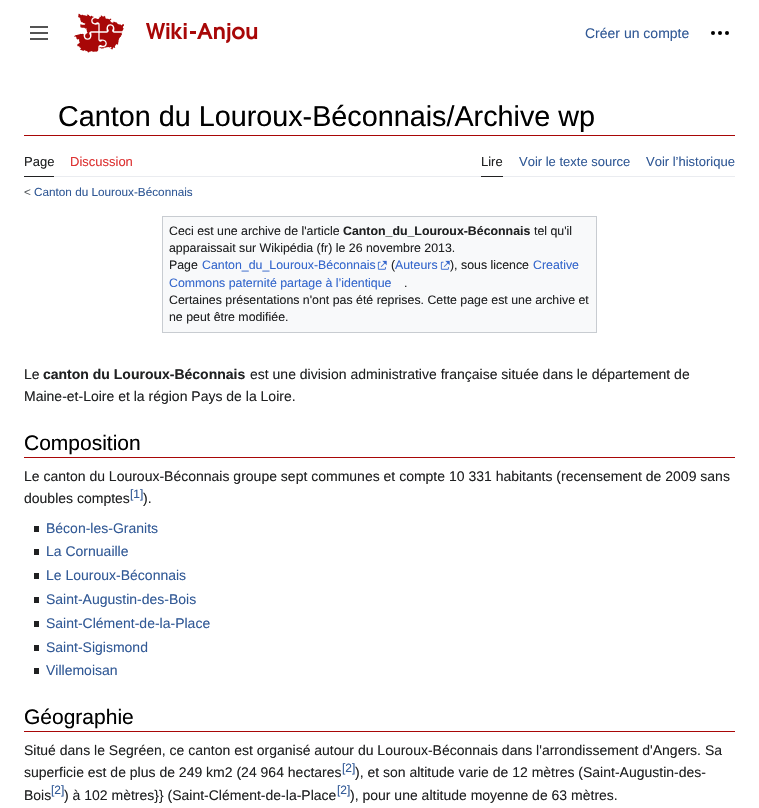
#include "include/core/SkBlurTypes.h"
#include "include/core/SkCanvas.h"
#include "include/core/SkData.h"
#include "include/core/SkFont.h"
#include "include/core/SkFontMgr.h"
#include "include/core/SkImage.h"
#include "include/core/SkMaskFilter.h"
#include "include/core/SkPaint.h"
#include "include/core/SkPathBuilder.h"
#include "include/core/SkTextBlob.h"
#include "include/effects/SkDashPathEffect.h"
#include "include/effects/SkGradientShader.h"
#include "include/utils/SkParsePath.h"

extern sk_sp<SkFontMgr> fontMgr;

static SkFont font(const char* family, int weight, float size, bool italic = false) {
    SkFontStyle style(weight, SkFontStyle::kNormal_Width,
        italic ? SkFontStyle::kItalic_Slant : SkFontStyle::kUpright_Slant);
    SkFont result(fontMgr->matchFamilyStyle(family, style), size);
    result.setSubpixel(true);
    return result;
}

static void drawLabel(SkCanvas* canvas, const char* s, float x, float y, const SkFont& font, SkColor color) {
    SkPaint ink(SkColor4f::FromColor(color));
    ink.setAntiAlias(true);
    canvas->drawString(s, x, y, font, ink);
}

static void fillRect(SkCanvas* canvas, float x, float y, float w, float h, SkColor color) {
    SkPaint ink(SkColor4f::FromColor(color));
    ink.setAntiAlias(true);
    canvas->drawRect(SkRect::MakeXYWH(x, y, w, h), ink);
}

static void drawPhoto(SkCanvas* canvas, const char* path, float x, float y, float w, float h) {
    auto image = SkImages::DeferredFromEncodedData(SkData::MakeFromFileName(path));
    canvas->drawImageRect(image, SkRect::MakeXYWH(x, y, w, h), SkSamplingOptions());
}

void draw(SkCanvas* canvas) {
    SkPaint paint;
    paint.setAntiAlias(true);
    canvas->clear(0xFFFFFFFF);
    drawPhoto(canvas, "assets/img1.png", 30, 26, 18, 14);
    drawPhoto(canvas, "assets/img2.png", 74, 13, 50, 40);
    drawPhoto(canvas, "assets/img3.png", 146, 23, 112, 20);
    SkFont font1 = font("Liberation Sans", 400, 14);
    drawLabel(canvas, "Créer un compte", 585, 38, font1, 0xFF315996);
    drawPhoto(canvas, "assets/img4.png", 711, 31, 18, 4);
    fillRect(canvas, 24, 135, 711, 1, 0xFFA80707);
    SkFont font2 = font("Liberation Sans", 400, 28.75f);
    drawLabel(canvas, "Canton du Louroux-Béconnais/Archive wp", 58, 126, font2, 0xFF000000);
    fillRect(canvas, 54, 176, 681, 1, 0xFFEAECF0);
    fillRect(canvas, 24, 176, 30, 1, 0xFF202122);
    SkFont font3 = font("Liberation Sans", 400, 13);
    drawLabel(canvas, "Page", 24, 166, font3, 0xFF202122);
    drawLabel(canvas, "Discussion", 70, 166, font3, 0xFFDD3333);
    fillRect(canvas, 481, 176, 22, 1, 0xFF202122);
    drawLabel(canvas, "Lire", 481, 166, font3, 0xFF202122);
    drawLabel(canvas, "Voir le texte source", 519, 166, font3, 0xFF315996);
    drawLabel(canvas, "Voir l’historique", 646, 166, font3, 0xFF315996);
    SkFont font4 = font("Liberation Sans", 400, 11.75f);
    drawLabel(canvas, "<", 24, 196, font4, 0xFF54595D);
    drawLabel(canvas, "Canton du Louroux-Béconnais", 34, 196, font4, 0xFF315996);
    paint.setColor(0xFFF8F9FA);
    canvas->drawRect(SkRect::MakeXYWH(162.5f, 216.5f, 434, 116), paint);
    paint.setStroke(true);
    paint.setStrokeWidth(1);
    paint.setColor(0xFFC8CCD1);
    canvas->drawRect(SkRect::MakeXYWH(162.5f, 216.5f, 434, 116), paint);
    SkFont font5 = font("Liberation Sans", 400, 12.35f);
    drawLabel(canvas, "Ceci est une archive de l'article", 169, 235, font5, 0xFF202122);
    SkFont font6 = font("Liberation Sans", 700, 12.35f);
    drawLabel(canvas, "Canton_du_Louroux-Béconnais", 343, 235, font6, 0xFF202122);
    drawLabel(canvas, "tel qu'il", 534, 235, font5, 0xFF202122);
    drawLabel(canvas, "apparaissait sur Wikipédia (fr) le 26 novembre 2013.", 169, 252, font5, 0xFF202122);
    drawLabel(canvas, "Page", 169, 269, font5, 0xFF202122);
    drawLabel(canvas, "Canton_du_Louroux-Béconnais", 202, 269, font5, 0xFF3366CC);
    drawPhoto(canvas, "assets/img5.png", 377, 260, 10, 10);
    drawLabel(canvas, "(", 391, 269, font5, 0xFF202122);
    drawLabel(canvas, "Auteurs", 395, 269, font5, 0xFF3366CC);
    drawPhoto(canvas, "assets/img5.png", 440, 260, 10, 10);
    drawLabel(canvas, "), sous licence", 450, 269, font5, 0xFF202122);
    drawLabel(canvas, "Creative", 533, 269, font5, 0xFF3366CC);
    drawLabel(canvas, "Commons paternité partage à l’identique", 169, 287, font5, 0xFF3366CC);
    drawLabel(canvas, ".", 404, 287, font5, 0xFF202122);
    drawLabel(canvas, "Certaines présentations n'ont pas été reprises. Cette page est une archive et", 169, 304, font5, 0xFF202122);
    drawLabel(canvas, "ne peut être modifiée.", 169, 321, font5, 0xFF202122);
    drawLabel(canvas, "Le", 24, 379, font1, 0xFF202122);
    SkFont font7 = font("Liberation Sans", 700, 14);
    drawLabel(canvas, "canton du Louroux-Béconnais", 43, 379, font7, 0xFF202122);
    drawLabel(canvas, "est une division administrative française située dans le département de", 250, 379, font1, 0xFF202122);
    drawLabel(canvas, "Maine-et-Loire et la région Pays de la Loire.", 24, 401, font1, 0xFF202122);
    fillRect(canvas, 24, 457, 711, 1, 0xFFA80707);
    SkFont font8 = font("Liberation Sans", 400, 21);
    drawLabel(canvas, "Composition", 24, 450, font8, 0xFF000000);
    drawLabel(canvas, "Le canton du Louroux-Béconnais groupe sept communes et compte 10 331 habitants (recensement de 2009 sans", 24, 481, font1, 0xFF202122);
    drawLabel(canvas, "doubles comptes", 24, 503, font1, 0xFF202122);
    SkFont font9 = font("Liberation Sans", 400, 12);
    drawLabel(canvas, "[1]", 130, 498, font9, 0xFF315996);
    drawLabel(canvas, ").", 143, 503, font1, 0xFF202122);
    fillRect(canvas, 34, 526, 5, 6, 0xFF202122);
    drawLabel(canvas, "Bécon-les-Granits", 46, 533, font1, 0xFF315996);
    fillRect(canvas, 34, 549, 5, 6, 0xFF202122);
    drawLabel(canvas, "La Cornuaille", 46, 556, font1, 0xFF315996);
    fillRect(canvas, 34, 573, 5, 6, 0xFF202122);
    drawLabel(canvas, "Le Louroux-Béconnais", 46, 580, font1, 0xFF315996);
    fillRect(canvas, 34, 597, 5, 6, 0xFF202122);
    drawLabel(canvas, "Saint-Augustin-des-Bois", 46, 604, font1, 0xFF315996);
    fillRect(canvas, 34, 621, 5, 6, 0xFF202122);
    drawLabel(canvas, "Saint-Clément-de-la-Place", 46, 628, font1, 0xFF315996);
    fillRect(canvas, 34, 645, 5, 6, 0xFF202122);
    drawLabel(canvas, "Saint-Sigismond", 46, 652, font1, 0xFF315996);
    fillRect(canvas, 34, 668, 5, 6, 0xFF202122);
    drawLabel(canvas, "Villemoisan", 46, 675, font1, 0xFF315996);
    fillRect(canvas, 24, 731, 711, 1, 0xFFA80707);
    drawLabel(canvas, "Géographie", 24, 724, font8, 0xFF000000);
    drawLabel(canvas, "Situé dans le Segréen, ce canton est organisé autour du Louroux-Béconnais dans l'arrondissement d'Angers. Sa", 24, 755, font1, 0xFF202122);
    drawLabel(canvas, "superficie est de plus de 249 km2 (24 964 hectares", 24, 777, font1, 0xFF202122);
    drawLabel(canvas, "[2]", 342, 772, font9, 0xFF315996);
    drawLabel(canvas, "), et son altitude varie de 12 mètres (Saint-Augustin-des-", 355, 777, font1, 0xFF202122);
    drawLabel(canvas, "Bois", 24, 800, font1, 0xFF202122);
    drawLabel(canvas, "[2]", 51, 794, font9, 0xFF315996);
    drawLabel(canvas, ") à 102 mètres}} (Saint-Clément-de-la-Place", 64, 800, font1, 0xFF202122);
    drawLabel(canvas, "[2]", 337, 794, font9, 0xFF315996);
    drawLabel(canvas, "), pour une altitude moyenne de 63 mètres.", 350, 800, font1, 0xFF202122);
}
